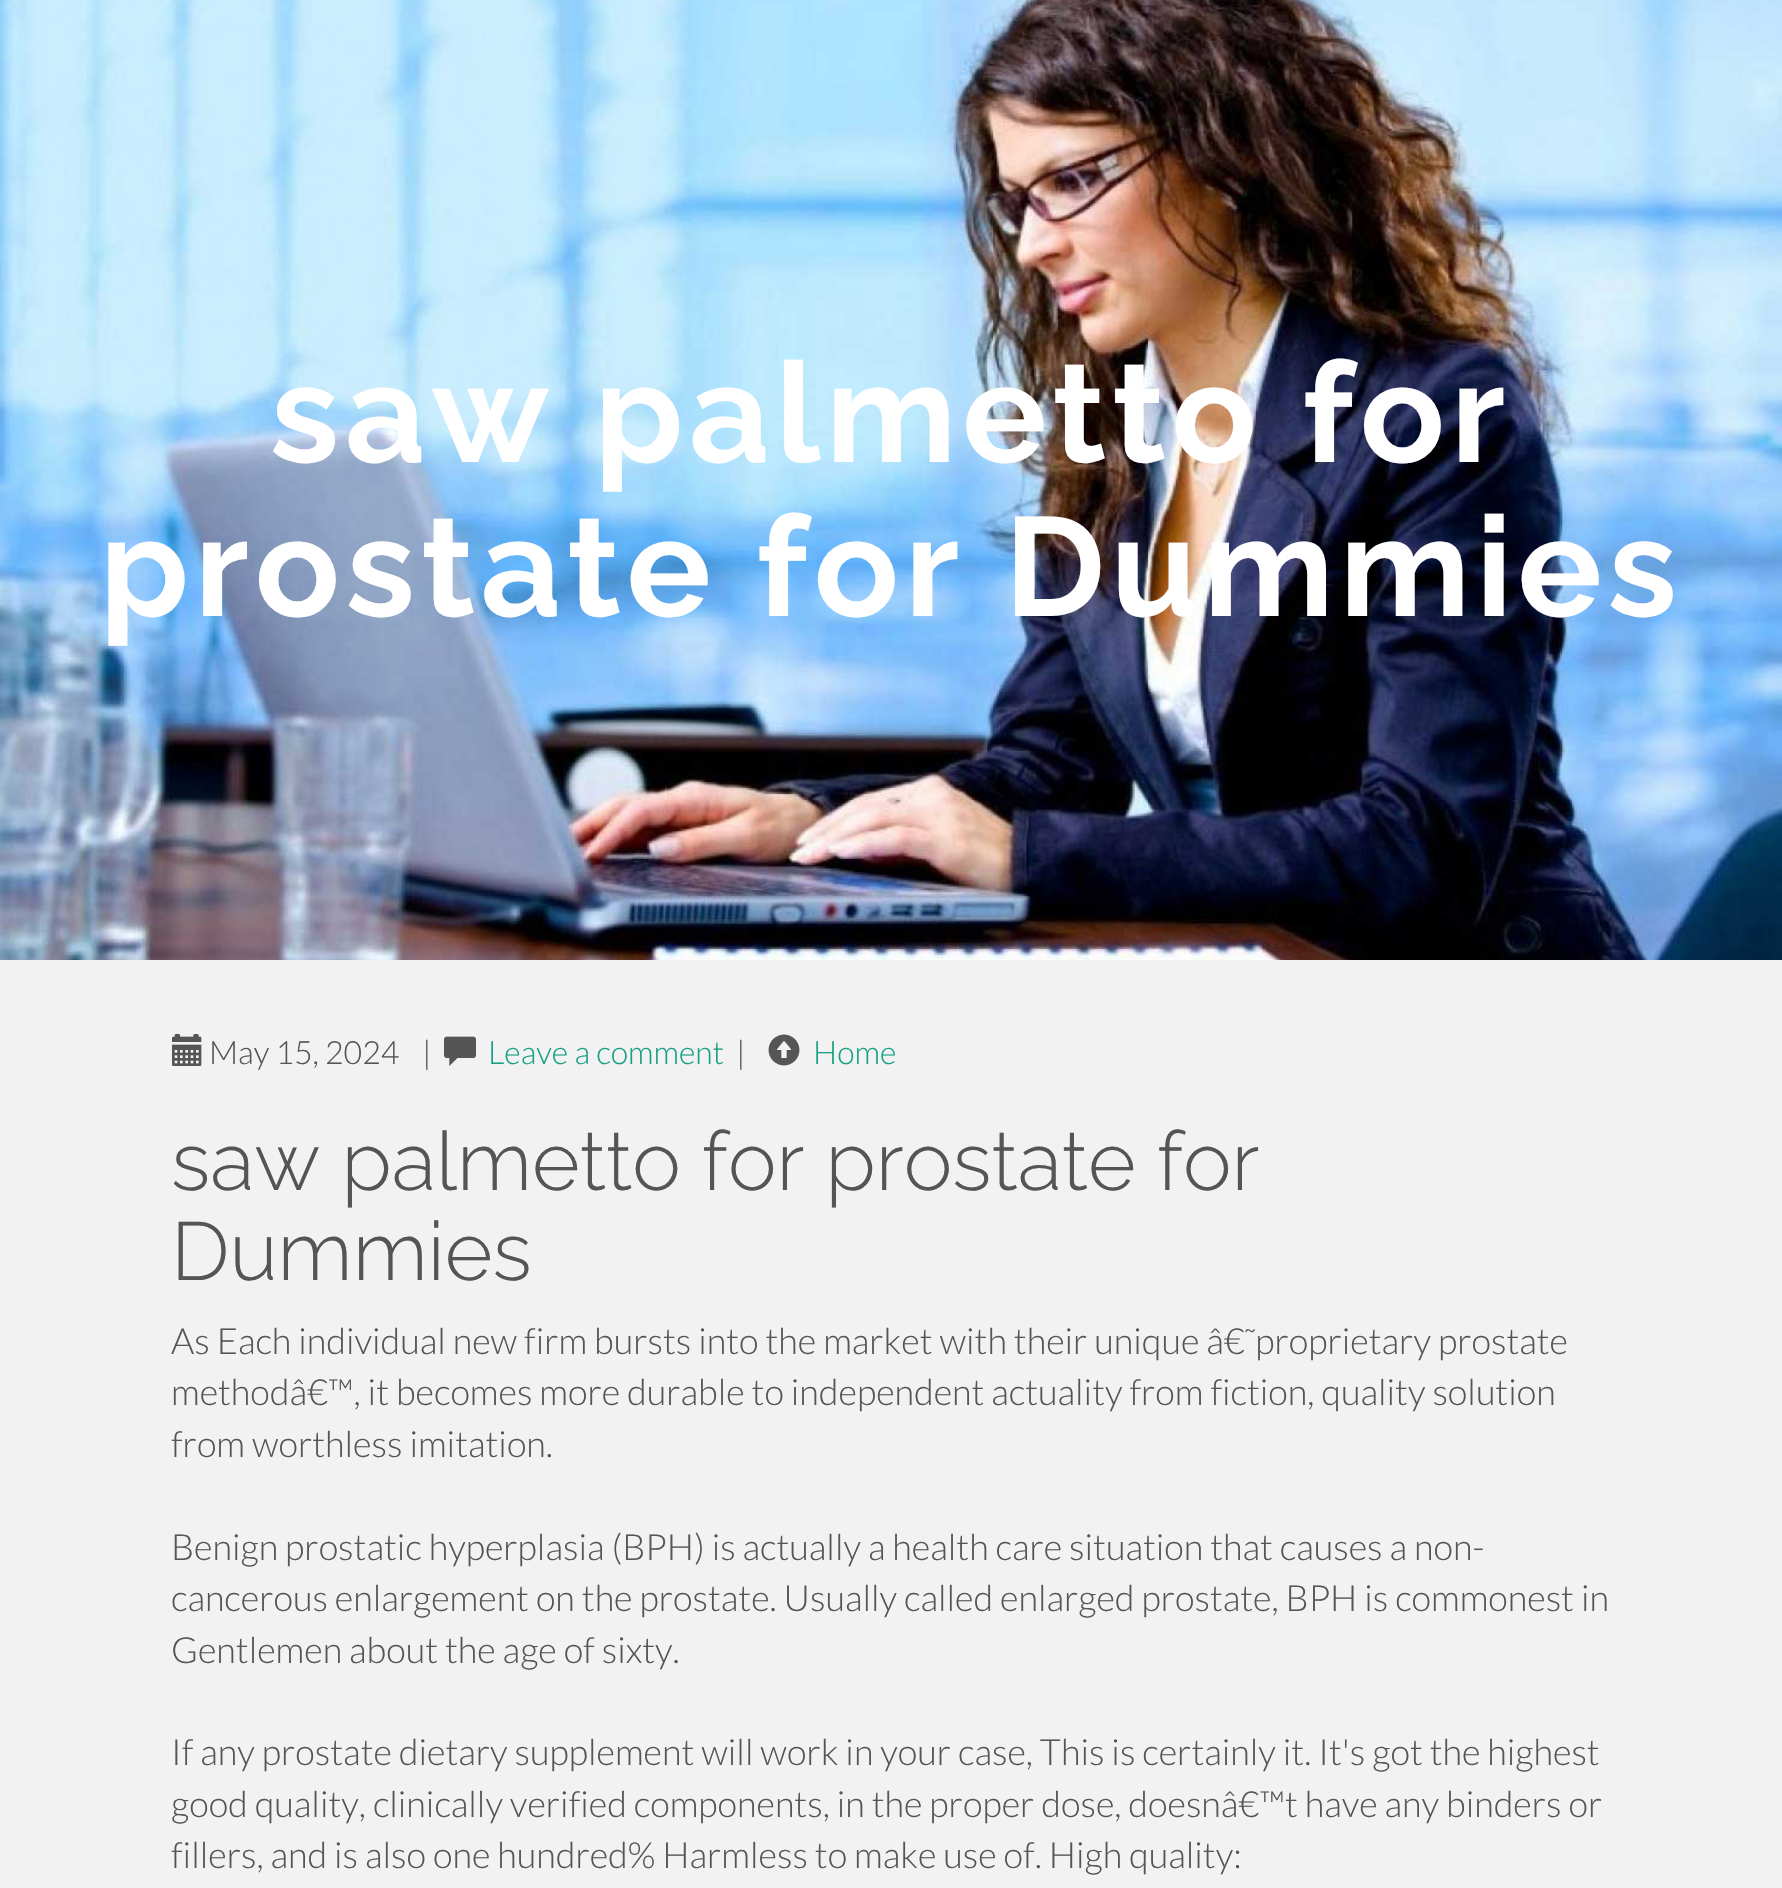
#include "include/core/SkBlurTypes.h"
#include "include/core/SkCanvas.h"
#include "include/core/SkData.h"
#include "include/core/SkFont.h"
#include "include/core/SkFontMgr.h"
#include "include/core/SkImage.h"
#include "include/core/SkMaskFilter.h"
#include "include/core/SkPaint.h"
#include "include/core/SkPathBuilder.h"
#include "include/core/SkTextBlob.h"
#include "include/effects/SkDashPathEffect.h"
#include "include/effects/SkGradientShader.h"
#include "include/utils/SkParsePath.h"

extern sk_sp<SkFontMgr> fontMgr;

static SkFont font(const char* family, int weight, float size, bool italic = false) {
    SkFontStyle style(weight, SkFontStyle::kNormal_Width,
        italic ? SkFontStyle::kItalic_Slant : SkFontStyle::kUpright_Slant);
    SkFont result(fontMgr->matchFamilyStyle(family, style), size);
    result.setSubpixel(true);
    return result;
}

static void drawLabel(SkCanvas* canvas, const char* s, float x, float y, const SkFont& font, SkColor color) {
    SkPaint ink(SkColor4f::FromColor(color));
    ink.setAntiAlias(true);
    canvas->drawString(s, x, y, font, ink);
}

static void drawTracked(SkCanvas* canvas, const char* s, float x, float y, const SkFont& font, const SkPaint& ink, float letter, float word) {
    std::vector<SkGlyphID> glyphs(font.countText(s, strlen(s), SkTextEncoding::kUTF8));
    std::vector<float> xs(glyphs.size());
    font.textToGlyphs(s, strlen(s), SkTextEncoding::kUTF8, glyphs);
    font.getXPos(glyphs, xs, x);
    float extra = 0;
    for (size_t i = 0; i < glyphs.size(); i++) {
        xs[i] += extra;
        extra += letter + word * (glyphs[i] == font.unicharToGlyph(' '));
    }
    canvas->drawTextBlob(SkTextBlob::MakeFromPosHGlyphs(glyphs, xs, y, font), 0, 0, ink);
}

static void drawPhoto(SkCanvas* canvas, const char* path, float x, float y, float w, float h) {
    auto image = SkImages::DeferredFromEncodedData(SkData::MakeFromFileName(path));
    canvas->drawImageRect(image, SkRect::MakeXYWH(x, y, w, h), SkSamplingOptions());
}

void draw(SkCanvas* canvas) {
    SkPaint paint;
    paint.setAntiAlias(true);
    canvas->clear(0xFFF2F2F2);
    drawPhoto(canvas, "assets/img1.png", 0, 0, 1782, 960);
    SkFont font1 = font("Raleway", 700, 140);
    paint.setColor(0xFFFFFFFF);
    drawTracked(canvas, "saw palmetto for", 270, 462, font1, paint, 6, 0);
    drawTracked(canvas, "prostate for Dummies", 100, 616, font1, paint, 6, 0);
    drawPhoto(canvas, "assets/img2.png", 172, 1034, 30, 32);
    SkFont font2 = font("Lato", 300, 32);
    drawLabel(canvas, "May 15, 2024", 209, 1064, font2, 0xFF555555);
    drawLabel(canvas, "|", 422, 1064, font2, 0xFF555555);
    drawPhoto(canvas, "assets/img3.png", 444, 1036, 32, 30);
    drawLabel(canvas, "Leave a comment", 488, 1064, font2, 0xFF16A085);
    drawLabel(canvas, "|", 736, 1064, font2, 0xFF555555);
    drawPhoto(canvas, "assets/img4.png", 768, 1034, 32, 32);
    drawLabel(canvas, "Home", 813, 1064, font2, 0xFF16A085);
    SkFont font3 = font("Raleway", 300, 82);
    drawLabel(canvas, "saw palmetto for prostate for", 171, 1190, font3, 0xFF555555);
    drawLabel(canvas, "Dummies", 171, 1280, font3, 0xFF555555);
    SkFont font4 = font("Lato", 300, 36);
    drawLabel(canvas, "As Each individual new firm bursts into the market with their unique â€˜proprietary prostate", 171, 1354, font4, 0xFF555555);
    drawLabel(canvas, "methodâ€™, it becomes more durable to independent actuality from fiction, quality solution", 171, 1405, font4, 0xFF555555);
    drawLabel(canvas, "from worthless imitation.", 171, 1457, font4, 0xFF555555);
    drawLabel(canvas, "Benign prostatic hyperplasia (BPH) is actually a health care situation that causes a non-", 171, 1560, font4, 0xFF555555);
    drawLabel(canvas, "cancerous enlargement on the prostate. Usually called enlarged prostate, BPH is commonest in", 171, 1611, font4, 0xFF555555);
    drawLabel(canvas, "Gentlemen about the age of sixty.", 171, 1663, font4, 0xFF555555);
    drawLabel(canvas, "If any prostate dietary supplement will work in your case, This is certainly it. It's got the highest", 171, 1765, font4, 0xFF555555);
    drawLabel(canvas, "good quality, clinically verified components, in the proper dose, doesnâ€™t have any binders or", 171, 1817, font4, 0xFF555555);
    drawLabel(canvas, "fillers, and is also one hundred% Harmless to make use of. High quality:", 171, 1868, font4, 0xFF555555);
}
